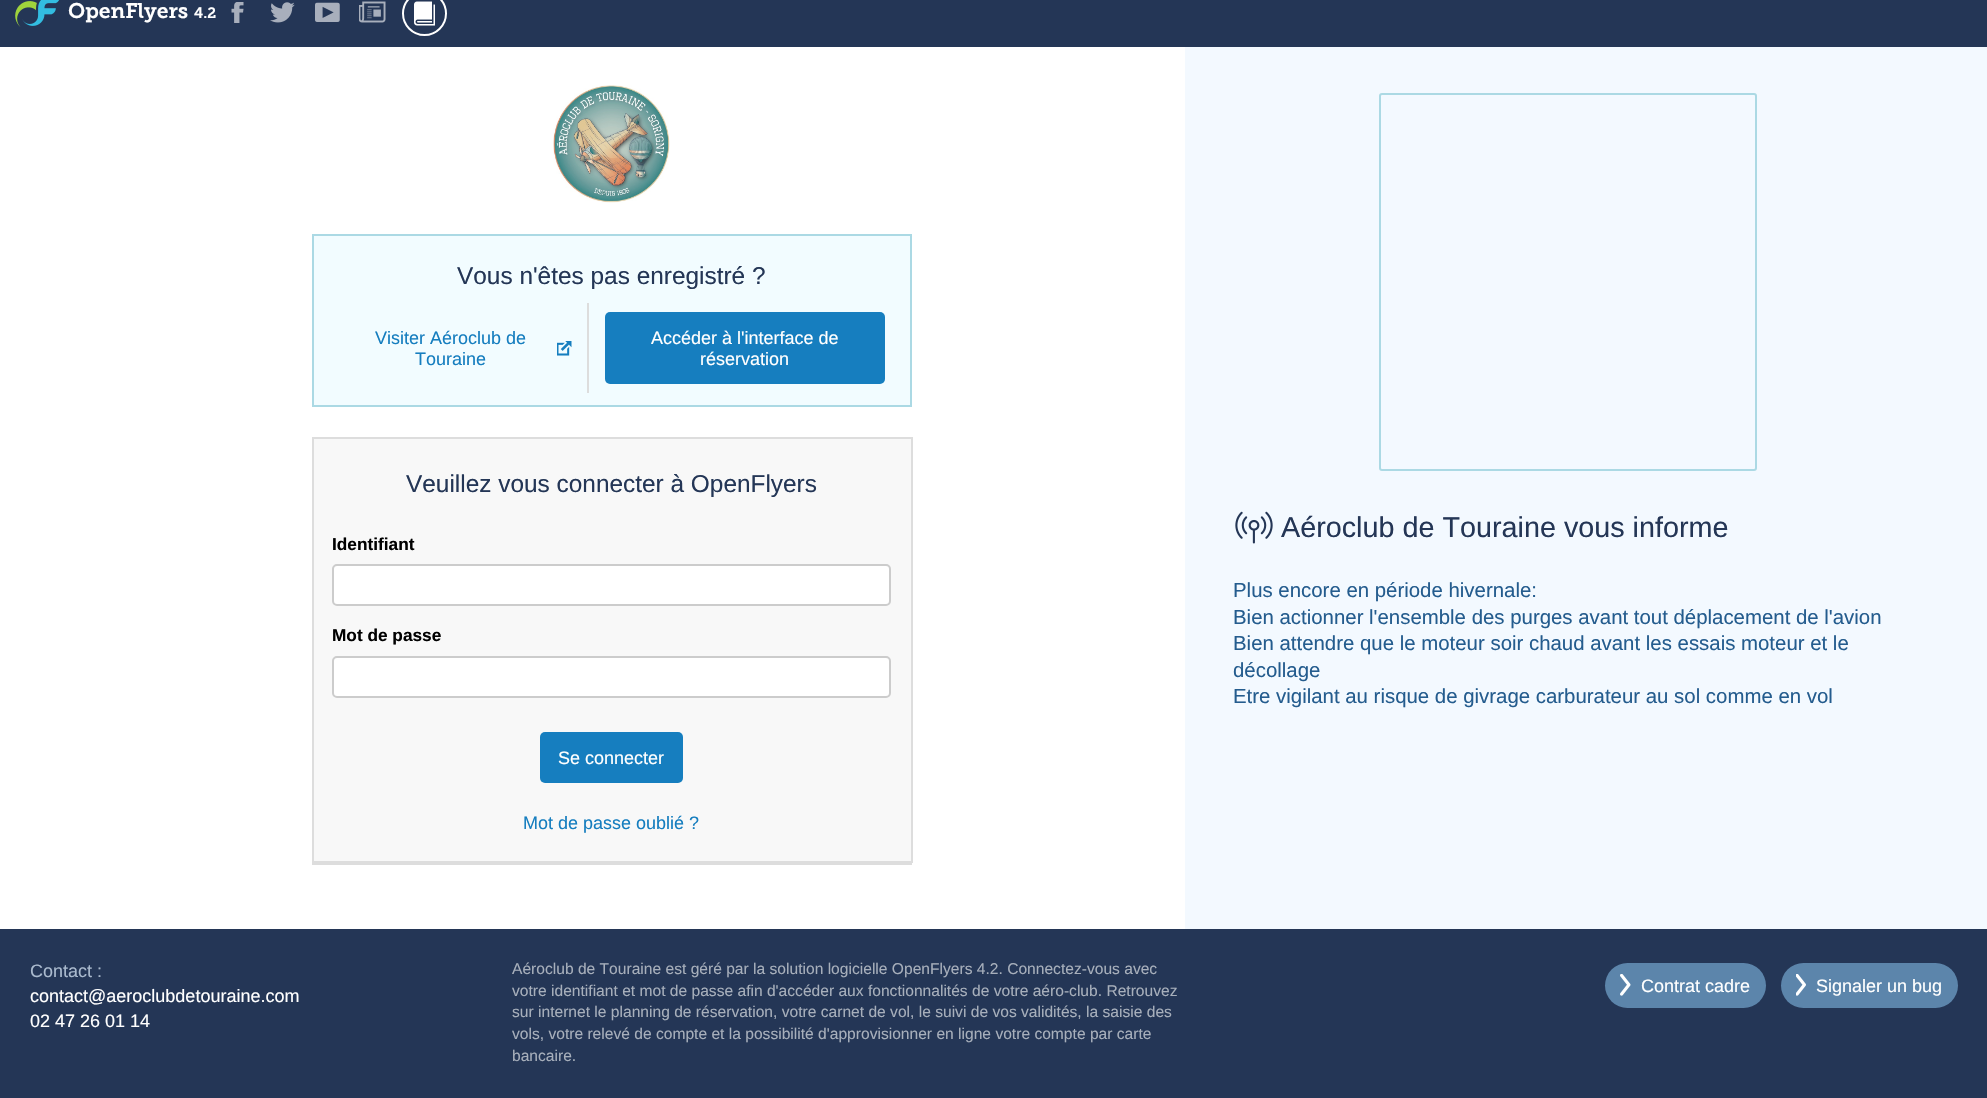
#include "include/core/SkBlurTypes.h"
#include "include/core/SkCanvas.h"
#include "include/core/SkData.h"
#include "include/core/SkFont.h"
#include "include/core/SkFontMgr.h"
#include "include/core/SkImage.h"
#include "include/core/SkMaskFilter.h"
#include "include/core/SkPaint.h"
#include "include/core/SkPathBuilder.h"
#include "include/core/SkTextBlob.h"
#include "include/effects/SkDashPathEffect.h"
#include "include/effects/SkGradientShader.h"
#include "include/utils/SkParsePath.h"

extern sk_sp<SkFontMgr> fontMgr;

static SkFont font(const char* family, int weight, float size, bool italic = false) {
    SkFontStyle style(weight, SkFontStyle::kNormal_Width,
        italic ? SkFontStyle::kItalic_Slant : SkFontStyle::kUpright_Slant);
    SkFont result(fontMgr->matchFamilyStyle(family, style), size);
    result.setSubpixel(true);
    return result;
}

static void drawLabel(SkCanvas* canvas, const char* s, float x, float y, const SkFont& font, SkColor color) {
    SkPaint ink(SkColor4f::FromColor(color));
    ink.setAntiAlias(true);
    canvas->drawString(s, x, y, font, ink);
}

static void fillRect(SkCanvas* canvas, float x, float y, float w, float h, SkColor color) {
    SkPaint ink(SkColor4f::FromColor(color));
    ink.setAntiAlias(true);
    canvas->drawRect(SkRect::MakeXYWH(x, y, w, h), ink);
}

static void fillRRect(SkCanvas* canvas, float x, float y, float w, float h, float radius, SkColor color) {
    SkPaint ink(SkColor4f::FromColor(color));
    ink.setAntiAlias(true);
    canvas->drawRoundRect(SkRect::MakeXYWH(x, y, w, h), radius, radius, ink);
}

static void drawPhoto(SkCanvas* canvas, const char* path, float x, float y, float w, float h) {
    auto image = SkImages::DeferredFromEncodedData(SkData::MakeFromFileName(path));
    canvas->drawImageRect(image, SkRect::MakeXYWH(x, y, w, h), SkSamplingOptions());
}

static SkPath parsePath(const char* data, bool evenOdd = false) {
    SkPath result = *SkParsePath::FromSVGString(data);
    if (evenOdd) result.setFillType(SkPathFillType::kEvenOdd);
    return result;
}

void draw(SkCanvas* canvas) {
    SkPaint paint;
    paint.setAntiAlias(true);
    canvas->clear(0xFFFFFFFF);
    paint.setColor(0xFFF3F9FF);
    canvas->drawPath(parsePath("M1185-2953V46H1950V735H1185V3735H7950V-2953Z"), paint);
    fillRect(canvas, 0, 0, 1987, 47, 0xFF243656);
    drawPhoto(canvas, "assets/img1.png", 15, 0, 44, 27);
    SkFont font1 = font("Museo Slab", 400, 21);
    drawLabel(canvas, "OpenFlyers", 68, 18, font1, 0xFFFFFFFF);
    SkFont font2 = font("Museo Slab", 400, 15);
    drawLabel(canvas, "4.2", 194, 18, font2, 0xFFFFFFFF);
    drawPhoto(canvas, "assets/img2.png", 231, 2, 13, 21);
    drawPhoto(canvas, "assets/img3.png", 270, 2, 25, 21);
    drawPhoto(canvas, "assets/img4.png", 315, 2, 25, 20);
    drawPhoto(canvas, "assets/img5.png", 359, 1, 27, 22);
    paint.setStroke(true);
    paint.setStrokeWidth(2);
    paint.setColor(0xFFFFFFFF);
    canvas->drawCircle(424.5f, 13.5f, 21.5f, paint);
    drawPhoto(canvas, "assets/img6.png", 414, 1, 21, 25);
    drawPhoto(canvas, "assets/img7.png", 553, 85, 117, 118);
    paint.setStroke(false);
    paint.setColor(0xFFF2FCFF);
    canvas->drawRect(SkRect::MakeXYWH(313, 235, 598, 171), paint);
    paint.setStroke(true);
    paint.setColor(0xFFABD9E4);
    canvas->drawRect(SkRect::MakeXYWH(313, 235, 598, 171), paint);
    SkFont font3 = font("Liberation Sans", 400, 24.4f);
    drawLabel(canvas, "Vous n'êtes pas enregistré ?", 457, 284, font3, 0xFF243656);
    fillRect(canvas, 587, 303, 2, 90, 0xFFDDDDDD);
    drawPhoto(canvas, "assets/img8.png", 557, 341, 15, 15);
    SkFont font4 = font("Liberation Sans", 400, 18);
    drawLabel(canvas, "Visiter Aéroclub de", 375, 344, font4, 0xFF167EBF);
    drawLabel(canvas, "Touraine", 415, 365, font4, 0xFF167EBF);
    fillRRect(canvas, 605, 312, 280, 72, 5, 0xFF167EBF);
    drawLabel(canvas, "Accéder à l'interface de", 651, 344, font4, 0xFFFFFFFF);
    drawLabel(canvas, "réservation", 700, 365, font4, 0xFFFFFFFF);
    fillRect(canvas, 314, 439, 597, 422, 0xFFF8F8F8);
    fillRect(canvas, 312, 863, 600, 2, 0xFFDDDDDD);
    fillRect(canvas, 312, 437, 2, 427, 0xFFDDDDDD);
    fillRect(canvas, 314, 437, 598, 2, 0xFFDDDDDD);
    fillRect(canvas, 911, 437, 2, 426, 0xFFDDDDDD);
    fillRect(canvas, 314, 861, 598, 2, 0xFFDDDDDD);
    drawLabel(canvas, "Veuillez vous connecter à OpenFlyers", 406, 492, font3, 0xFF243656);
    SkFont font5 = font("Liberation Sans", 700, 17.25f);
    drawLabel(canvas, "Identifiant", 332, 550, font5, 0xFF000000);
    paint.setStroke(false);
    paint.setColor(0xFFFFFFFF);
    canvas->drawRoundRect(SkRect::MakeXYWH(333, 565, 557, 40), 4, 4, paint);
    paint.setStroke(true);
    paint.setColor(0xFFCCCCCC);
    canvas->drawRoundRect(SkRect::MakeXYWH(333, 565, 557, 40), 4, 4, paint);
    drawLabel(canvas, "Mot de passe", 332, 641, font5, 0xFF000000);
    paint.setStroke(false);
    paint.setColor(0xFFFFFFFF);
    canvas->drawRoundRect(SkRect::MakeXYWH(333, 657, 557, 40), 4, 4, paint);
    paint.setStroke(true);
    paint.setColor(0xFFCCCCCC);
    canvas->drawRoundRect(SkRect::MakeXYWH(333, 657, 557, 40), 4, 4, paint);
    fillRRect(canvas, 540, 732, 143, 51, 5, 0xFF167EBF);
    drawLabel(canvas, "Se connecter", 558, 764, font4, 0xFFFFFFFF);
    drawLabel(canvas, "Mot de passe oublié ?", 523, 829, font4, 0xFF167EBF);
    fillRect(canvas, 1185, 47, 765, 688, 0xFFF3F9FF);
    paint.setColor(0xFFABD9E4);
    canvas->drawRoundRect(SkRect::MakeXYWH(1380, 94, 376, 376), 2, 2, paint);
    drawPhoto(canvas, "assets/img9.png", 1235, 511, 38, 33);
    SkFont font6 = font("Liberation Sans", 400, 28.75f);
    drawLabel(canvas, "Aéroclub de Touraine vous informe", 1281, 537, font6, 0xFF243656);
    SkFont font7 = font("Liberation Sans", 400, 20.4f);
    drawLabel(canvas, "Plus encore en période hivernale:", 1233, 597, font7, 0xFF245C8E);
    drawLabel(canvas, "Bien actionner l'ensemble des purges avant tout déplacement de l'avion", 1233, 624, font7, 0xFF245C8E);
    drawLabel(canvas, "Bien attendre que le moteur soir chaud avant les essais moteur et le", 1233, 650, font7, 0xFF245C8E);
    drawLabel(canvas, "décollage", 1233, 677, font7, 0xFF245C8E);
    drawLabel(canvas, "Etre vigilant au risque de givrage carburateur au sol comme en vol", 1233, 703, font7, 0xFF245C8E);
    fillRect(canvas, 0, 929, 1987, 169, 0xFF243656);
    drawLabel(canvas, "Contact :", 30, 977, font4, 0xFFAABACE);
    drawLabel(canvas, "contact@aeroclubdetouraine.com", 30, 1002, font4, 0xFFFFFFFF);
    drawLabel(canvas, "02 47 26 01 14", 30, 1027, font4, 0xFFFFFFFF);
    SkFont font8 = font("Liberation Sans", 400, 15.6f);
    drawLabel(canvas, "Aéroclub de Touraine est géré par la solution logicielle OpenFlyers 4.2. Connectez-vous avec", 512, 974, font8, 0xFFA7AFBB);
    drawLabel(canvas, "votre identifiant et mot de passe afin d'accéder aux fonctionnalités de votre aéro-club. Retrouvez", 512, 996, font8, 0xFFA7AFBB);
    drawLabel(canvas, "sur internet le planning de réservation, votre carnet de vol, le suivi de vos validités, la saisie des", 512, 1017, font8, 0xFFA7AFBB);
    drawLabel(canvas, "vols, votre relevé de compte et la possibilité d'approvisionner en ligne votre compte par carte", 512, 1039, font8, 0xFFA7AFBB);
    drawLabel(canvas, "bancaire.", 512, 1061, font8, 0xFFA7AFBB);
    fillRRect(canvas, 1605, 963, 161, 45, 22.5f, 0xFF5C85AB);
    drawPhoto(canvas, "assets/img10.png", 1620, 974, 11, 22);
    drawLabel(canvas, "Contrat cadre", 1641, 992, font4, 0xFFFFFFFF);
    fillRRect(canvas, 1781, 963, 177, 45, 22.5f, 0xFF5C85AB);
    drawPhoto(canvas, "assets/img11.png", 1796, 974, 10, 22);
    drawLabel(canvas, "Signaler un bug", 1816, 992, font4, 0xFFFFFFFF);
}
